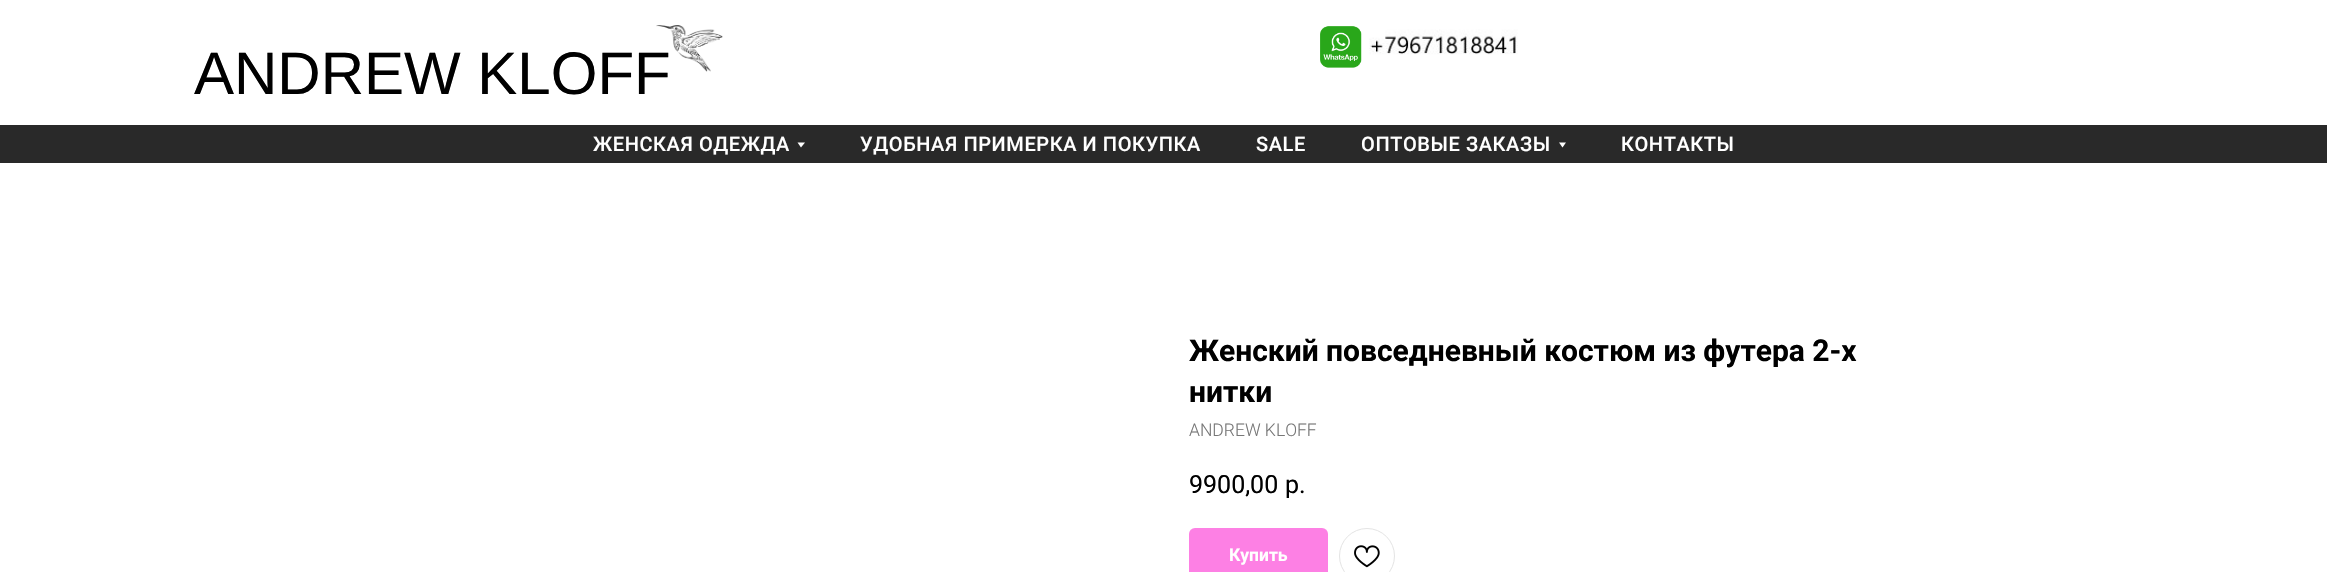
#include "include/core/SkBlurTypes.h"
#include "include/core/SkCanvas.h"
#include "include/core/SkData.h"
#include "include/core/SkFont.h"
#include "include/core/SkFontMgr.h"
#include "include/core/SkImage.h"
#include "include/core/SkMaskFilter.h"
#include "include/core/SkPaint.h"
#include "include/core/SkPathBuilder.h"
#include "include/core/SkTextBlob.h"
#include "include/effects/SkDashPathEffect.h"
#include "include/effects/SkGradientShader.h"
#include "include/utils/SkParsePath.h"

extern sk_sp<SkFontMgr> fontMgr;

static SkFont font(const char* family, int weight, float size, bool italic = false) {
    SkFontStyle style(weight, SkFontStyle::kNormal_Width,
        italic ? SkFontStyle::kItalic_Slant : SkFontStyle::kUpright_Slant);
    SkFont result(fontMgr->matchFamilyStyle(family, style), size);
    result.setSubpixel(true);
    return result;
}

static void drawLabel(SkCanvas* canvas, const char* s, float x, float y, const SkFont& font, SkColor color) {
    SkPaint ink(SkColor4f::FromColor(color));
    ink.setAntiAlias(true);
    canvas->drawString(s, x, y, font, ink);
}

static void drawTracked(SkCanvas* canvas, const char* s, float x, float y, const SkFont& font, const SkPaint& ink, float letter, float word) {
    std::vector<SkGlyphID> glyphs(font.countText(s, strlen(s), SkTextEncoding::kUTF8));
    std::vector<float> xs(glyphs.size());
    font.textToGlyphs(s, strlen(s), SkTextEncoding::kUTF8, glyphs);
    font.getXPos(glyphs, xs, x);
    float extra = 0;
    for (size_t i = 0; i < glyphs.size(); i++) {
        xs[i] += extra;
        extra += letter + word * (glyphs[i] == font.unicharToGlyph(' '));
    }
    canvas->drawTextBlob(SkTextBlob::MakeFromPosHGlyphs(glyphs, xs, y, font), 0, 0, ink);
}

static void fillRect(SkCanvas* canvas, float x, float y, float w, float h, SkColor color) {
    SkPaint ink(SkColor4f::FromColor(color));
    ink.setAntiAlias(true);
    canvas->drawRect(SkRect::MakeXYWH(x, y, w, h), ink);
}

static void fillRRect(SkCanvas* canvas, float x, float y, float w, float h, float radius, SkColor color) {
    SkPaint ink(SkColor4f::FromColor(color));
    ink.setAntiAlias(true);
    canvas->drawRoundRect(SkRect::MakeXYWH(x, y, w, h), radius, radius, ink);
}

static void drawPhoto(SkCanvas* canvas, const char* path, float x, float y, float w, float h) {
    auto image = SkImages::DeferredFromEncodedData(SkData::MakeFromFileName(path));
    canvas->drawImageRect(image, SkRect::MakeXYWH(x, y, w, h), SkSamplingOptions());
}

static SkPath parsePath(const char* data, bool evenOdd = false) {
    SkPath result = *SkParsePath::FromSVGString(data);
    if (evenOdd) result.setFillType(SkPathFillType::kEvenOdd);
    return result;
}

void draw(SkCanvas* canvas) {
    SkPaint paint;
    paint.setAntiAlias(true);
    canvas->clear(0xFFFFFFFF);
    drawPhoto(canvas, "assets/img1.png", 656, 25, 67, 47);
    drawPhoto(canvas, "assets/img2.png", 1320, 26, 42, 42);
    drawPhoto(canvas, "assets/img3.png", 1369, 29, 149, 26);
    SkFont font1 = font("Liberation Sans", 400, 60);
    drawLabel(canvas, "ANDREW KLOFF", 194, 94, font1, 0xFF000000);
    fillRect(canvas, 0, 125, 2327, 38, 0xFF292929);
    SkFont font2 = font("Roboto", 500, 20);
    paint.setColor(0xFFFFFFFF);
    drawTracked(canvas, "ЖЕНСКАЯ ОДЕЖДА", 593, 151, font2, paint, 0.6f, 0);
    canvas->drawPath(parsePath("M797.5 142.5H805L801 147.5Z"), paint);
    drawTracked(canvas, "УДОБНАЯ ПРИМЕРКА И ПОКУПКА", 860, 151, font2, paint, 0.6f, 0);
    drawTracked(canvas, "SALE", 1256, 151, font2, paint, 0.6f, 0);
    drawTracked(canvas, "ОПТОВЫЕ ЗАКАЗЫ", 1361, 151, font2, paint, 0.6f, 0);
    canvas->drawPath(parsePath("M1559 142.5H1566L1562.5 147.5Z"), paint);
    drawTracked(canvas, "КОНТАКТЫ", 1621, 151, font2, paint, 0.6f, 0);
    SkFont font3 = font("Roboto", 700, 30);
    drawLabel(canvas, "Женский повседневный костюм из футера 2-х", 1189, 361, font3, 0xFF000000);
    drawLabel(canvas, "нитки", 1189, 402, font3, 0xFF000000);
    SkFont font4 = font("Roboto", 300, 17.5f);
    drawLabel(canvas, "ANDREW KLOFF", 1189, 436, font4, 0xFF777777);
    SkFont font5 = font("Roboto", 400, 25);
    drawLabel(canvas, "9900,00", 1189, 493, font5, 0xFF000000);
    drawLabel(canvas, "р.", 1285, 493, font5, 0xFF000000);
    fillRRect(canvas, 1189, 528, 139, 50, 6, 0xFFFD80E4);
    SkFont font6 = font("Roboto", 700, 17.5f);
    drawLabel(canvas, "Купить", 1229, 561, font6, 0xFFFFFFFF);
    paint.setStroke(true);
    paint.setStrokeWidth(1);
    paint.setColor(0xFFE4E4E4);
    canvas->drawCircle(1367, 556, 27.5f, paint);
    drawPhoto(canvas, "assets/img4.png", 1354, 545, 26, 23);
}
